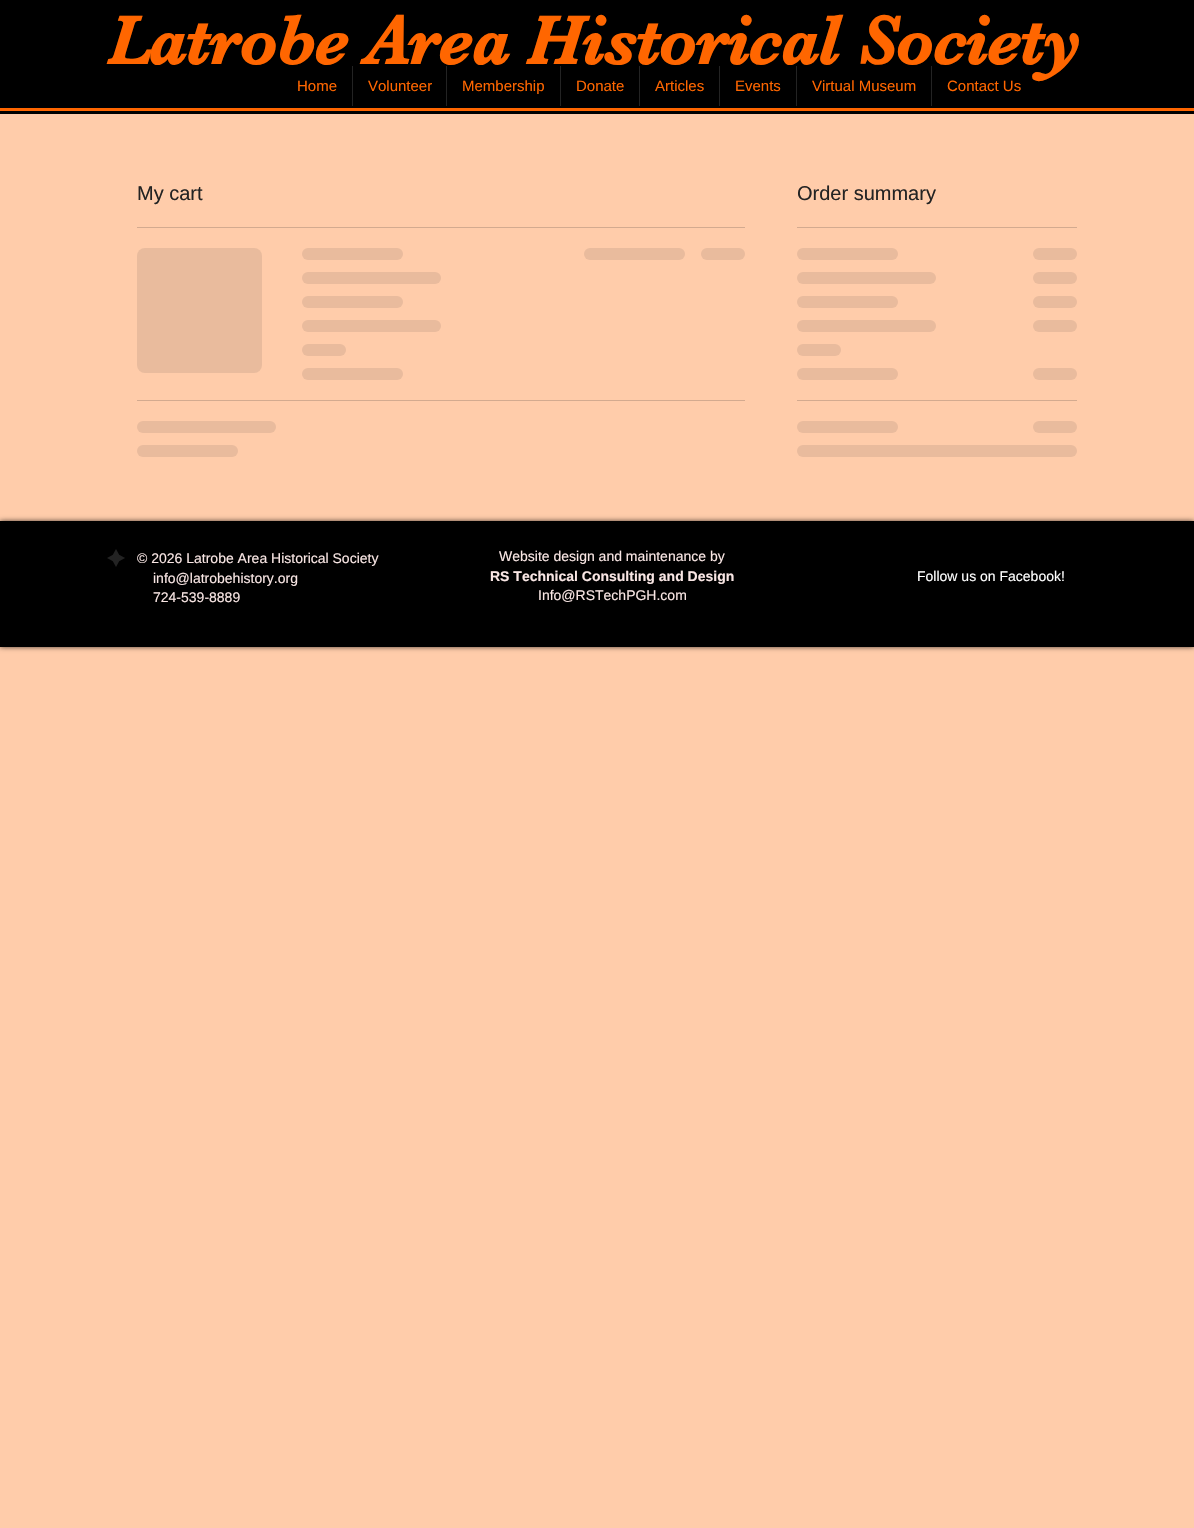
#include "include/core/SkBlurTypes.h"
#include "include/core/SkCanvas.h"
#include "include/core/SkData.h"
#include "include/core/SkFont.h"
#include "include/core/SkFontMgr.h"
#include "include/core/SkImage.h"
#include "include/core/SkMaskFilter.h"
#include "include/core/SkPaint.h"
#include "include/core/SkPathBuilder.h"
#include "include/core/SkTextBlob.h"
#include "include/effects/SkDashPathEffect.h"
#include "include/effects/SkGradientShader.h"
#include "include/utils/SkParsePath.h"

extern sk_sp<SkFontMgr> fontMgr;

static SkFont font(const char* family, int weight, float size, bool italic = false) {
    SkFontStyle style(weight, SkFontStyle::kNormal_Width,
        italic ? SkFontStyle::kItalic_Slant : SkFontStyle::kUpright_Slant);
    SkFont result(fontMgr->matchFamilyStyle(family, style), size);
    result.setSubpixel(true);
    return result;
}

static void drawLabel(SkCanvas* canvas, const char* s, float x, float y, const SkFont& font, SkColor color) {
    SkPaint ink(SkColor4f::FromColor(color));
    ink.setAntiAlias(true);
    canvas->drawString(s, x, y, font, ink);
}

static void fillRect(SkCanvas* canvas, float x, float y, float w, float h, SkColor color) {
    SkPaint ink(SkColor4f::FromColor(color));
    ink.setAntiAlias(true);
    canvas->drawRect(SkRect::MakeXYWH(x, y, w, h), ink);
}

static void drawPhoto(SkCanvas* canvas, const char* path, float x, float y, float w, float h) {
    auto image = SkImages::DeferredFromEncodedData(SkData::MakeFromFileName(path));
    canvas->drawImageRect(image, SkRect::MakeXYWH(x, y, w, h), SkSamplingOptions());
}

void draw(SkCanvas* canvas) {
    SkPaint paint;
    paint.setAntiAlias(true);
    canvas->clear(0xFFFFCCAA);
    fillRect(canvas, 0, 0, 1194, 114, 0xFF000000);
    SkFont font1 = font("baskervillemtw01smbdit", 700, 70);
    drawLabel(canvas, "Latrobe Area Historical Society", 107, 64, font1, 0xFFFF6600);
    SkFont font2 = font("Liberation Sans", 400, 15);
    drawLabel(canvas, "Home", 297, 91, font2, 0xFFFF6600);
    fillRect(canvas, 352, 66, 1, 40, 0xFF232323);
    drawLabel(canvas, "Volunteer", 368, 91, font2, 0xFFFF6600);
    fillRect(canvas, 446, 66, 1, 40, 0xFF232323);
    drawLabel(canvas, "Membership", 462, 91, font2, 0xFFFF6600);
    fillRect(canvas, 560, 66, 1, 40, 0xFF232323);
    drawLabel(canvas, "Donate", 576, 91, font2, 0xFFFF6600);
    fillRect(canvas, 639, 66, 1, 40, 0xFF232323);
    drawLabel(canvas, "Articles", 655, 91, font2, 0xFFFF6600);
    fillRect(canvas, 719, 66, 1, 40, 0xFF232323);
    drawLabel(canvas, "Events", 735, 91, font2, 0xFFFF6600);
    fillRect(canvas, 796, 66, 1, 40, 0xFF232323);
    drawLabel(canvas, "Virtual Museum", 812, 91, font2, 0xFFFF6600);
    fillRect(canvas, 931, 66, 1, 40, 0xFF232323);
    drawLabel(canvas, "Contact Us", 947, 91, font2, 0xFFFF6600);
    fillRect(canvas, 0, 108, 1194, 3, 0xFFFF6600);
    fillRect(canvas, 137, 227, 608, 1, 0xFFD3AA8F);
    SkFont font3 = font("Liberation Sans", 400, 20);
    drawLabel(canvas, "My cart", 137, 200, font3, 0xFF232323);
    {
        const SkColor colors[] = {0xFFE9BB9D, 0xFFD3AA8F, 0xFFE9BB9D};
        const float stops[] = {0.25f, 0.37f, 0.63f};
        const SkPoint ends[] = {{137, 311}, {637, 311}};
        paint.setShader(SkGradientShader::MakeLinear(ends, colors, stops, 3, SkTileMode::kClamp));
        paint.setAlpha(255);
    }
    canvas->drawRoundRect(SkRect::MakeXYWH(137, 248, 125, 125), 8, 8, paint);
    {
        const SkColor colors[] = {0xFFE9BB9D, 0xFFD3AA8F, 0xFFE9BB9D};
        const float stops[] = {0.25f, 0.37f, 0.63f};
        const SkPoint ends[] = {{302, 254}, {706, 254}};
        paint.setShader(SkGradientShader::MakeLinear(ends, colors, stops, 3, SkTileMode::kClamp));
        paint.setAlpha(255);
    }
    canvas->drawRoundRect(SkRect::MakeXYWH(302, 248, 101, 12), 6, 6, paint);
    {
        const SkColor colors[] = {0xFFE9BB9D, 0xFFD3AA8F, 0xFFE9BB9D};
        const float stops[] = {0.25f, 0.37f, 0.63f};
        const SkPoint ends[] = {{302, 278}, {858, 278}};
        paint.setShader(SkGradientShader::MakeLinear(ends, colors, stops, 3, SkTileMode::kClamp));
        paint.setAlpha(255);
    }
    canvas->drawRoundRect(SkRect::MakeXYWH(302, 272, 139, 12), 6, 6, paint);
    {
        const SkColor colors[] = {0xFFE9BB9D, 0xFFD3AA8F, 0xFFE9BB9D};
        const float stops[] = {0.25f, 0.37f, 0.63f};
        const SkPoint ends[] = {{302, 302}, {706, 302}};
        paint.setShader(SkGradientShader::MakeLinear(ends, colors, stops, 3, SkTileMode::kClamp));
        paint.setAlpha(255);
    }
    canvas->drawRoundRect(SkRect::MakeXYWH(302, 296, 101, 12), 6, 6, paint);
    {
        const SkColor colors[] = {0xFFE9BB9D, 0xFFD3AA8F, 0xFFE9BB9D};
        const float stops[] = {0.25f, 0.37f, 0.63f};
        const SkPoint ends[] = {{302, 326}, {858, 326}};
        paint.setShader(SkGradientShader::MakeLinear(ends, colors, stops, 3, SkTileMode::kClamp));
        paint.setAlpha(255);
    }
    canvas->drawRoundRect(SkRect::MakeXYWH(302, 320, 139, 12), 6, 6, paint);
    {
        const SkColor colors[] = {0xFFE9BB9D, 0xFFD3AA8F, 0xFFE9BB9D};
        const float stops[] = {0.25f, 0.37f, 0.63f};
        const SkPoint ends[] = {{302, 350}, {478, 350}};
        paint.setShader(SkGradientShader::MakeLinear(ends, colors, stops, 3, SkTileMode::kClamp));
        paint.setAlpha(255);
    }
    canvas->drawRoundRect(SkRect::MakeXYWH(302, 344, 44, 12), 6, 6, paint);
    {
        const SkColor colors[] = {0xFFE9BB9D, 0xFFD3AA8F, 0xFFE9BB9D};
        const float stops[] = {0.25f, 0.37f, 0.63f};
        const SkPoint ends[] = {{302, 374}, {706, 374}};
        paint.setShader(SkGradientShader::MakeLinear(ends, colors, stops, 3, SkTileMode::kClamp));
        paint.setAlpha(255);
    }
    canvas->drawRoundRect(SkRect::MakeXYWH(302, 368, 101, 12), 6, 6, paint);
    {
        const SkColor colors[] = {0xFFE9BB9D, 0xFFD3AA8F, 0xFFE9BB9D};
        const float stops[] = {0.25f, 0.37f, 0.63f};
        const SkPoint ends[] = {{584, 254}, {988, 254}};
        paint.setShader(SkGradientShader::MakeLinear(ends, colors, stops, 3, SkTileMode::kClamp));
        paint.setAlpha(255);
    }
    canvas->drawRoundRect(SkRect::MakeXYWH(584, 248, 101, 12), 6, 6, paint);
    {
        const SkColor colors[] = {0xFFE9BB9D, 0xFFD3AA8F, 0xFFE9BB9D};
        const float stops[] = {0.25f, 0.37f, 0.63f};
        const SkPoint ends[] = {{701, 254}, {877, 254}};
        paint.setShader(SkGradientShader::MakeLinear(ends, colors, stops, 3, SkTileMode::kClamp));
        paint.setAlpha(255);
    }
    canvas->drawRoundRect(SkRect::MakeXYWH(701, 248, 44, 12), 6, 6, paint);
    fillRect(canvas, 137, 400, 608, 1, 0xFFD3AA8F);
    {
        const SkColor colors[] = {0xFFE9BB9D, 0xFFD3AA8F, 0xFFE9BB9D};
        const float stops[] = {0.25f, 0.37f, 0.63f};
        const SkPoint ends[] = {{137, 427}, {693, 427}};
        paint.setShader(SkGradientShader::MakeLinear(ends, colors, stops, 3, SkTileMode::kClamp));
        paint.setAlpha(255);
    }
    canvas->drawRoundRect(SkRect::MakeXYWH(137, 421, 139, 12), 6, 6, paint);
    {
        const SkColor colors[] = {0xFFE9BB9D, 0xFFD3AA8F, 0xFFE9BB9D};
        const float stops[] = {0.25f, 0.37f, 0.63f};
        const SkPoint ends[] = {{137, 451}, {541, 451}};
        paint.setShader(SkGradientShader::MakeLinear(ends, colors, stops, 3, SkTileMode::kClamp));
        paint.setAlpha(255);
    }
    canvas->drawRoundRect(SkRect::MakeXYWH(137, 445, 101, 12), 6, 6, paint);
    fillRect(canvas, 797, 227, 280, 1, 0xFFD3AA8F);
    drawLabel(canvas, "Order summary", 797, 200, font3, 0xFF232323);
    {
        const SkColor colors[] = {0xFFE9BB9D, 0xFFD3AA8F, 0xFFE9BB9D};
        const float stops[] = {0.25f, 0.37f, 0.63f};
        const SkPoint ends[] = {{797, 254}, {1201, 254}};
        paint.setShader(SkGradientShader::MakeLinear(ends, colors, stops, 3, SkTileMode::kClamp));
        paint.setAlpha(255);
    }
    canvas->drawRoundRect(SkRect::MakeXYWH(797, 248, 101, 12), 6, 6, paint);
    {
        const SkColor colors[] = {0xFFE9BB9D, 0xFFD3AA8F, 0xFFE9BB9D};
        const float stops[] = {0.25f, 0.37f, 0.63f};
        const SkPoint ends[] = {{1033, 254}, {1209, 254}};
        paint.setShader(SkGradientShader::MakeLinear(ends, colors, stops, 3, SkTileMode::kClamp));
        paint.setAlpha(255);
    }
    canvas->drawRoundRect(SkRect::MakeXYWH(1033, 248, 44, 12), 6, 6, paint);
    {
        const SkColor colors[] = {0xFFE9BB9D, 0xFFD3AA8F, 0xFFE9BB9D};
        const float stops[] = {0.25f, 0.37f, 0.63f};
        const SkPoint ends[] = {{797, 278}, {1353, 278}};
        paint.setShader(SkGradientShader::MakeLinear(ends, colors, stops, 3, SkTileMode::kClamp));
        paint.setAlpha(255);
    }
    canvas->drawRoundRect(SkRect::MakeXYWH(797, 272, 139, 12), 6, 6, paint);
    {
        const SkColor colors[] = {0xFFE9BB9D, 0xFFD3AA8F, 0xFFE9BB9D};
        const float stops[] = {0.25f, 0.37f, 0.63f};
        const SkPoint ends[] = {{1033, 278}, {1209, 278}};
        paint.setShader(SkGradientShader::MakeLinear(ends, colors, stops, 3, SkTileMode::kClamp));
        paint.setAlpha(255);
    }
    canvas->drawRoundRect(SkRect::MakeXYWH(1033, 272, 44, 12), 6, 6, paint);
    {
        const SkColor colors[] = {0xFFE9BB9D, 0xFFD3AA8F, 0xFFE9BB9D};
        const float stops[] = {0.25f, 0.37f, 0.63f};
        const SkPoint ends[] = {{797, 302}, {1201, 302}};
        paint.setShader(SkGradientShader::MakeLinear(ends, colors, stops, 3, SkTileMode::kClamp));
        paint.setAlpha(255);
    }
    canvas->drawRoundRect(SkRect::MakeXYWH(797, 296, 101, 12), 6, 6, paint);
    {
        const SkColor colors[] = {0xFFE9BB9D, 0xFFD3AA8F, 0xFFE9BB9D};
        const float stops[] = {0.25f, 0.37f, 0.63f};
        const SkPoint ends[] = {{1033, 302}, {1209, 302}};
        paint.setShader(SkGradientShader::MakeLinear(ends, colors, stops, 3, SkTileMode::kClamp));
        paint.setAlpha(255);
    }
    canvas->drawRoundRect(SkRect::MakeXYWH(1033, 296, 44, 12), 6, 6, paint);
    {
        const SkColor colors[] = {0xFFE9BB9D, 0xFFD3AA8F, 0xFFE9BB9D};
        const float stops[] = {0.25f, 0.37f, 0.63f};
        const SkPoint ends[] = {{797, 326}, {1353, 326}};
        paint.setShader(SkGradientShader::MakeLinear(ends, colors, stops, 3, SkTileMode::kClamp));
        paint.setAlpha(255);
    }
    canvas->drawRoundRect(SkRect::MakeXYWH(797, 320, 139, 12), 6, 6, paint);
    {
        const SkColor colors[] = {0xFFE9BB9D, 0xFFD3AA8F, 0xFFE9BB9D};
        const float stops[] = {0.25f, 0.37f, 0.63f};
        const SkPoint ends[] = {{1033, 326}, {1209, 326}};
        paint.setShader(SkGradientShader::MakeLinear(ends, colors, stops, 3, SkTileMode::kClamp));
        paint.setAlpha(255);
    }
    canvas->drawRoundRect(SkRect::MakeXYWH(1033, 320, 44, 12), 6, 6, paint);
    {
        const SkColor colors[] = {0xFFE9BB9D, 0xFFD3AA8F, 0xFFE9BB9D};
        const float stops[] = {0.25f, 0.37f, 0.63f};
        const SkPoint ends[] = {{797, 350}, {973, 350}};
        paint.setShader(SkGradientShader::MakeLinear(ends, colors, stops, 3, SkTileMode::kClamp));
        paint.setAlpha(255);
    }
    canvas->drawRoundRect(SkRect::MakeXYWH(797, 344, 44, 12), 6, 6, paint);
    {
        const SkColor colors[] = {0xFFE9BB9D, 0xFFD3AA8F, 0xFFE9BB9D};
        const float stops[] = {0.25f, 0.37f, 0.63f};
        const SkPoint ends[] = {{797, 374}, {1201, 374}};
        paint.setShader(SkGradientShader::MakeLinear(ends, colors, stops, 3, SkTileMode::kClamp));
        paint.setAlpha(255);
    }
    canvas->drawRoundRect(SkRect::MakeXYWH(797, 368, 101, 12), 6, 6, paint);
    {
        const SkColor colors[] = {0xFFE9BB9D, 0xFFD3AA8F, 0xFFE9BB9D};
        const float stops[] = {0.25f, 0.37f, 0.63f};
        const SkPoint ends[] = {{1033, 374}, {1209, 374}};
        paint.setShader(SkGradientShader::MakeLinear(ends, colors, stops, 3, SkTileMode::kClamp));
        paint.setAlpha(255);
    }
    canvas->drawRoundRect(SkRect::MakeXYWH(1033, 368, 44, 12), 6, 6, paint);
    fillRect(canvas, 797, 400, 280, 1, 0xFFD3AA8F);
    {
        const SkColor colors[] = {0xFFE9BB9D, 0xFFD3AA8F, 0xFFE9BB9D};
        const float stops[] = {0.25f, 0.37f, 0.63f};
        const SkPoint ends[] = {{797, 427}, {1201, 427}};
        paint.setShader(SkGradientShader::MakeLinear(ends, colors, stops, 3, SkTileMode::kClamp));
        paint.setAlpha(255);
    }
    canvas->drawRoundRect(SkRect::MakeXYWH(797, 421, 101, 12), 6, 6, paint);
    {
        const SkColor colors[] = {0xFFE9BB9D, 0xFFD3AA8F, 0xFFE9BB9D};
        const float stops[] = {0.25f, 0.37f, 0.63f};
        const SkPoint ends[] = {{1033, 427}, {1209, 427}};
        paint.setShader(SkGradientShader::MakeLinear(ends, colors, stops, 3, SkTileMode::kClamp));
        paint.setAlpha(255);
    }
    canvas->drawRoundRect(SkRect::MakeXYWH(1033, 421, 44, 12), 6, 6, paint);
    {
        const SkColor colors[] = {0xFFE9BB9D, 0xFFD3AA8F, 0xFFE9BB9D};
        const float stops[] = {0.25f, 0.37f, 0.63f};
        const SkPoint ends[] = {{797, 451}, {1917, 451}};
        paint.setShader(SkGradientShader::MakeLinear(ends, colors, stops, 3, SkTileMode::kClamp));
        paint.setAlpha(255);
    }
    canvas->drawRoundRect(SkRect::MakeXYWH(797, 445, 280, 12), 6, 6, paint);
    paint.setShader(nullptr);
    paint.setColor(0xB3000000);
    paint.setMaskFilter(SkMaskFilter::MakeBlur(kNormal_SkBlurStyle, 2.5f));
    canvas->drawRect(SkRect::MakeXYWH(0, 521, 1194, 126), paint);
    paint.setMaskFilter(nullptr);
    fillRect(canvas, 0, 521, 1194, 126, 0xFF000000);
    drawPhoto(canvas, "assets/img1.png", 107, 549, 18, 18);
    SkFont font4 = font("Liberation Sans", 400, 14);
    drawLabel(canvas, "© 2026 Latrobe Area Historical Society", 137, 563, font4, 0xFFF9E6E4);
    drawLabel(canvas, "info@latrobehistory.org", 153, 583, font4, 0xFFF9E6E4);
    drawLabel(canvas, "724-539-8889", 153, 602, font4, 0xFFF9E6E4);
    drawLabel(canvas, "Website design and maintenance by", 499, 561, font4, 0xFFF9E6E4);
    SkFont font5 = font("Liberation Sans", 700, 14);
    drawLabel(canvas, "RS Technical Consulting and Design", 490, 581, font5, 0xFFF9E6E4);
    drawLabel(canvas, "Info@RSTechPGH.com", 538, 600, font4, 0xFFF9E6E4);
    drawLabel(canvas, "Follow us on Facebook!", 917, 581, font4, 0xFFFFFFFF);
}
